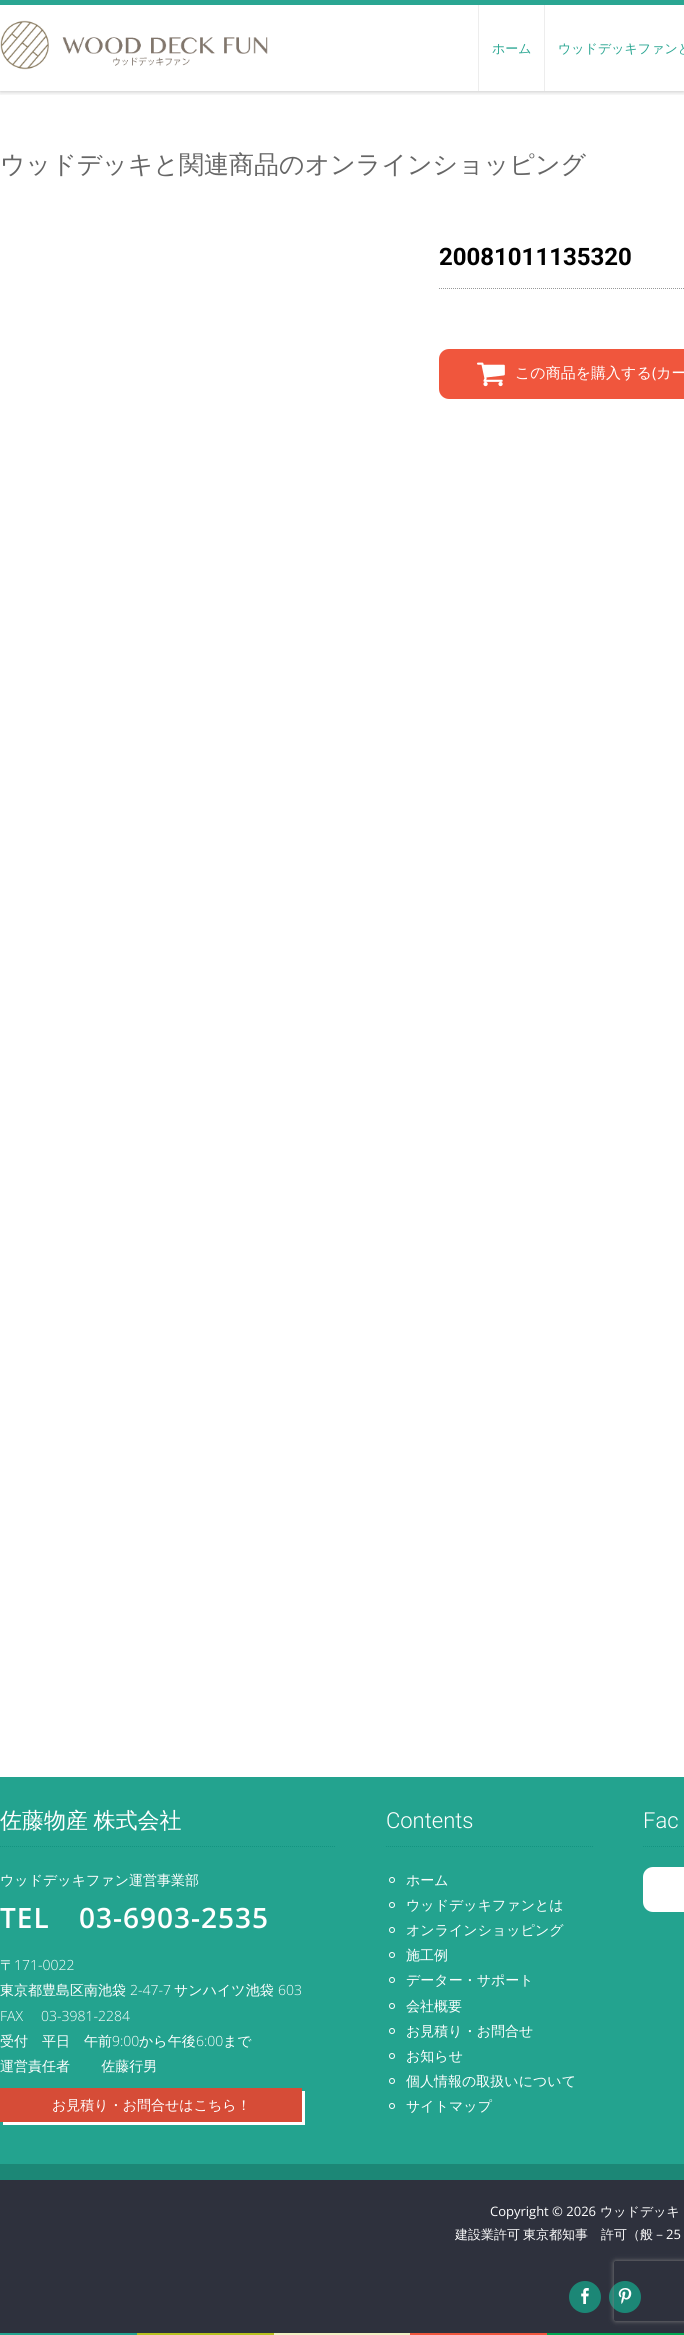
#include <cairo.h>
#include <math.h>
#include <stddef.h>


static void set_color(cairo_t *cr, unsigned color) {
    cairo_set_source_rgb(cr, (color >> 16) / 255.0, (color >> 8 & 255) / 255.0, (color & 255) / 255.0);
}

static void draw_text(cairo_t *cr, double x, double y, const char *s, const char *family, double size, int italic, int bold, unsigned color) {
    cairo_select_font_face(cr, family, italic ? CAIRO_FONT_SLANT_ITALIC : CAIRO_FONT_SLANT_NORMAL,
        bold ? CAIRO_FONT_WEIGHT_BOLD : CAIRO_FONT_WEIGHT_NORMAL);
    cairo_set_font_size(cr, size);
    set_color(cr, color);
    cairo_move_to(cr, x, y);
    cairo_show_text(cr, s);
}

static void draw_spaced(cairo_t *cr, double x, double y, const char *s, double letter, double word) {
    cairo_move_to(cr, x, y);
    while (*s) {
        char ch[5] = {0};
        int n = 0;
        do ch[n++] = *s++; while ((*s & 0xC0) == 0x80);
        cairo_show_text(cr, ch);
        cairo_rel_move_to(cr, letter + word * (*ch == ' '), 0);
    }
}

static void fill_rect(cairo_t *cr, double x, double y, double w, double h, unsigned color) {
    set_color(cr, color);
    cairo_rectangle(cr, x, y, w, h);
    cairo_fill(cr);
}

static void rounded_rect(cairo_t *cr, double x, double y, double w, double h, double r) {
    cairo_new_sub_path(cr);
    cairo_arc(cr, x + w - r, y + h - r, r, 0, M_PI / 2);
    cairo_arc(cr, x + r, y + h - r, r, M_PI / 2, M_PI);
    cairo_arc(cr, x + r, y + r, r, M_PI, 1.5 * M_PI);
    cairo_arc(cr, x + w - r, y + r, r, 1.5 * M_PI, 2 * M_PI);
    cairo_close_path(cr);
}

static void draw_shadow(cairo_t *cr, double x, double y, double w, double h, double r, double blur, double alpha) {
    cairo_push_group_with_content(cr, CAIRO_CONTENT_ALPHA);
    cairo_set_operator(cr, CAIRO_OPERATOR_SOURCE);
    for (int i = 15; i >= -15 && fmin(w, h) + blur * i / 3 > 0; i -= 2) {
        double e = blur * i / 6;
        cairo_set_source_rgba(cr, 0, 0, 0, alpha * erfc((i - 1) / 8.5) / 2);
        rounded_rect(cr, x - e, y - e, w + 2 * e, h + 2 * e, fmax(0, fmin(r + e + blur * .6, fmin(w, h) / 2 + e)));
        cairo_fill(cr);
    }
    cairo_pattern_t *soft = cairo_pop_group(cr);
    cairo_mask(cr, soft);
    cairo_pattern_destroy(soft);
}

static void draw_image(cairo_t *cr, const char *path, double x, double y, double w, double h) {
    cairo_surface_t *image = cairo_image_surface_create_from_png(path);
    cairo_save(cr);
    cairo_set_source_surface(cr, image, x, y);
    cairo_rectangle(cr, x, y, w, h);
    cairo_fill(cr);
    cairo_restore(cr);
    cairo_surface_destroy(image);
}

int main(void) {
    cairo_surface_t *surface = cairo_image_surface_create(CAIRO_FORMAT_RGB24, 684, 2335);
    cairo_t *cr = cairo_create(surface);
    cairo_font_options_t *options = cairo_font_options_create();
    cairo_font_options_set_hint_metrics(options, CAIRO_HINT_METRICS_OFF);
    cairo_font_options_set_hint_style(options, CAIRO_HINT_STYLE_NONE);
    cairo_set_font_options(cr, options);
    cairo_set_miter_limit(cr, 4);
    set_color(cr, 0xFFFFFF);
    cairo_paint(cr);
    cairo_save(cr);
    cairo_rectangle(cr, 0, 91, 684, 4);
    cairo_clip(cr);
    set_color(cr, 0x080808);
    draw_shadow(cr, 0, 0, 684, 91, 0, 3, 0.3);
    cairo_restore(cr);
    fill_rect(cr, 0, 0, 684, 5, 0x2AA692);
    draw_image(cr, "assets/img1.png", 0, 20, 268, 50);
    fill_rect(cr, 478, 5, 1, 86, 0xEDEDED);
    draw_text(cr, 492, 53, "ホーム", "WenQuanYi Zen Hei Medium", 13, 0, 0, 0x2AA692);
    fill_rect(cr, 544, 5, 1, 86, 0xEDEDED);
    draw_text(cr, 558, 53, "ウッドデッキファンと", "WenQuanYi Zen Hei Medium", 13, 0, 0, 0x2AA692);
    draw_text(cr, 0, 173, "ウッドデッキと関連商品のオンラインショッピング", "WenQuanYi Zen Hei Medium", 25, 0, 0, 0x666666);
    draw_text(cr, 439, 265, "20081011135320", "Roboto", 24, 0, 1, 0x000000);
    cairo_new_path(cr);
    cairo_move_to(cr, 439, 288.5);
    cairo_line_to(cr, 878, 288.5);
    set_color(cr, 0x979999);
    cairo_set_line_width(cr, 1);
    cairo_set_dash(cr, (double[]){1, 1}, 2, 0);
    cairo_stroke(cr);
    set_color(cr, 0xF0563D);
    rounded_rect(cr, 439, 349, 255, 50, 10);
    cairo_fill(cr);
    draw_image(cr, "assets/img2.png", 477, 362, 28, 25);
    draw_text(cr, 515, 378, "この商品を購入する カー", "WenQuanYi Zen Hei Medium", 15, 0, 0, 0xFFFFFF);
    draw_text(cr, 652, 378, "(", "Open Sans", 15, 0, 0, 0xFFFFFF);
    fill_rect(cr, 0, 1777, 684, 387, 0x23A38F);
    cairo_new_path(cr);
    cairo_move_to(cr, 0, 1846.5);
    cairo_line_to(cr, 336, 1846.5);
    set_color(cr, 0x139481);
    cairo_stroke(cr);
    cairo_select_font_face(cr, "WenQuanYi Zen Hei Medium", CAIRO_FONT_SLANT_NORMAL, CAIRO_FONT_WEIGHT_NORMAL);
    cairo_set_font_size(cr, 22);
    set_color(cr, 0xFFFFFF);
    draw_spaced(cr, 0, 1828, "佐藤物産 株式会社", 0, -1);
    draw_text(cr, 0, 1885, "ウッドデッキファン運営事業部", "WenQuanYi Zen Hei Medium", 14, 0, 0, 0xFFFFFF);
    cairo_select_font_face(cr, "Open Sans SemiBold", CAIRO_FONT_SLANT_NORMAL, CAIRO_FONT_WEIGHT_NORMAL);
    cairo_set_font_size(cr, 28);
    draw_spaced(cr, 0, 1928, "TEL", 1, 0);
    draw_spaced(cr, 79, 1928, "03-6903-2535", 1, 0);
    draw_text(cr, 0, 1970, "〒", "WenQuanYi Zen Hei Medium", 14, 0, 0, 0xFFFFFF);
    draw_text(cr, 14, 1970, "171-0022", "Open Sans Light", 14, 0, 0, 0xFFFFFF);
    draw_text(cr, 0, 1995, "東京都豊島区南池袋", "WenQuanYi Zen Hei Medium", 14, 0, 0, 0xFFFFFF);
    draw_text(cr, 130, 1995, "2-47-7", "Open Sans Light", 14, 0, 0, 0xFFFFFF);
    draw_text(cr, 174, 1995, "サンハイツ池袋", "WenQuanYi Zen Hei Medium", 14, 0, 0, 0xFFFFFF);
    draw_text(cr, 278, 1995, "603", "Open Sans Light", 14, 0, 0, 0xFFFFFF);
    draw_text(cr, 0, 2021, "FAX", "Open Sans Light", 14, 0, 0, 0xFFFFFF);
    draw_text(cr, 41, 2021, "03-3981-2284", "Open Sans Light", 14, 0, 0, 0xFFFFFF);
    draw_text(cr, 0, 2046, "受付　平日　午前", "WenQuanYi Zen Hei Medium", 14, 0, 0, 0xFFFFFF);
    draw_text(cr, 112, 2046, "9:00", "Open Sans Light", 14, 0, 0, 0xFFFFFF);
    draw_text(cr, 139, 2046, "から午後", "WenQuanYi Zen Hei Medium", 14, 0, 0, 0xFFFFFF);
    draw_text(cr, 196, 2046, "6:00", "Open Sans Light", 14, 0, 0, 0xFFFFFF);
    draw_text(cr, 223, 2046, "まで", "WenQuanYi Zen Hei Medium", 14, 0, 0, 0xFFFFFF);
    draw_spaced(cr, 0, 2071, "運営責任者　 　佐藤行男", 0, -1);
    cairo_new_path(cr);
    cairo_move_to(cr, 3, 2122);
    cairo_line_to(cr, 3, 2125);
    cairo_line_to(cr, 305, 2125);
    cairo_line_to(cr, 305, 2091);
    cairo_line_to(cr, 302, 2091);
    cairo_line_to(cr, 302, 2122);
    cairo_close_path(cr);
    cairo_fill(cr);
    fill_rect(cr, 0, 2088, 302, 34, 0xD64C37);
    draw_text(cr, 52, 2110, "お見積り・お問合せはこちら！", "WenQuanYi Zen Hei Medium", 14, 0, 0, 0xFFFFFF);
    cairo_new_path(cr);
    cairo_move_to(cr, 386, 1846.5);
    cairo_line_to(cr, 593, 1846.5);
    set_color(cr, 0x139481);
    cairo_stroke(cr);
    draw_text(cr, 386, 1828, "Contents", "Roboto Light", 22, 0, 0, 0xFFFFFF);
    cairo_new_path(cr);
    cairo_arc(cr, 392, 1880, 2.5, 0, 2 * M_PI);
    cairo_set_dash(cr, NULL, 0, 0);
    cairo_stroke(cr);
    draw_text(cr, 406, 1885, "ホーム", "WenQuanYi Zen Hei Medium", 14, 0, 0, 0xFFFFFF);
    cairo_new_path(cr);
    cairo_arc(cr, 392, 1905, 2.5, 0, 2 * M_PI);
    cairo_stroke(cr);
    draw_text(cr, 406, 1910, "ウッドデッキファンとは", "WenQuanYi Zen Hei Medium", 14, 0, 0, 0xFFFFFF);
    cairo_new_path(cr);
    cairo_arc(cr, 392, 1930, 2.5, 0, 2 * M_PI);
    cairo_stroke(cr);
    draw_text(cr, 406, 1935, "オンラインショッピング", "WenQuanYi Zen Hei Medium", 14, 0, 0, 0xFFFFFF);
    cairo_new_path(cr);
    cairo_arc(cr, 392, 1955, 2.5, 0, 2 * M_PI);
    cairo_stroke(cr);
    draw_text(cr, 406, 1960, "施工例", "WenQuanYi Zen Hei Medium", 14, 0, 0, 0xFFFFFF);
    cairo_new_path(cr);
    cairo_arc(cr, 392, 1980, 2.5, 0, 2 * M_PI);
    cairo_stroke(cr);
    draw_text(cr, 406, 1985, "データー・サポート", "WenQuanYi Zen Hei Medium", 14, 0, 0, 0xFFFFFF);
    cairo_new_path(cr);
    cairo_arc(cr, 392, 2006, 2.5, 0, 2 * M_PI);
    cairo_stroke(cr);
    draw_text(cr, 406, 2011, "会社概要", "WenQuanYi Zen Hei Medium", 14, 0, 0, 0xFFFFFF);
    cairo_new_path(cr);
    cairo_arc(cr, 392, 2031, 2.5, 0, 2 * M_PI);
    cairo_stroke(cr);
    draw_text(cr, 406, 2036, "お見積り・お問合せ", "WenQuanYi Zen Hei Medium", 14, 0, 0, 0xFFFFFF);
    cairo_new_path(cr);
    cairo_arc(cr, 392, 2056, 2.5, 0, 2 * M_PI);
    cairo_stroke(cr);
    draw_text(cr, 406, 2061, "お知らせ", "WenQuanYi Zen Hei Medium", 14, 0, 0, 0xFFFFFF);
    cairo_new_path(cr);
    cairo_arc(cr, 392, 2081, 2.5, 0, 2 * M_PI);
    cairo_stroke(cr);
    draw_text(cr, 406, 2086, "個人情報の取扱いについて", "WenQuanYi Zen Hei Medium", 14, 0, 0, 0xFFFFFF);
    cairo_new_path(cr);
    cairo_arc(cr, 392, 2106, 2.5, 0, 2 * M_PI);
    cairo_stroke(cr);
    draw_text(cr, 406, 2111, "サイトマップ", "WenQuanYi Zen Hei Medium", 14, 0, 0, 0xFFFFFF);
    cairo_new_path(cr);
    cairo_move_to(cr, 643, 1846.5);
    cairo_line_to(cr, 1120, 1846.5);
    set_color(cr, 0x139481);
    cairo_set_dash(cr, (double[]){1, 1}, 2, 0);
    cairo_stroke(cr);
    draw_text(cr, 643, 1828, "Fac", "Roboto Light", 22, 0, 0, 0xFFFFFF);
    rounded_rect(cr, 643, 1867, 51, 45, 10);
    cairo_fill(cr);
    fill_rect(cr, 0, 2164, 684, 16, 0x1C8776);
    fill_rect(cr, 0, 2180, 684, 153, 0x2E313D);
    draw_text(cr, 490, 2216, "Copyright © 2026", "Open Sans", 13, 0, 0, 0xFFFFFF);
    draw_text(cr, 600, 2216, "ウッドデッキ", "WenQuanYi Zen Hei Medium", 13, 0, 0, 0xFFFFFF);
    draw_text(cr, 455, 2239, "建設業許可", "WenQuanYi Zen Hei Medium", 13, 0, 0, 0xFFFFFF);
    draw_text(cr, 523, 2239, "東京都知事　許可（般－", "WenQuanYi Zen Hei Medium", 13, 0, 0, 0xFFFFFF);
    draw_text(cr, 666, 2239, "25", "Open Sans", 13, 0, 0, 0xFFFFFF);
    set_color(cr, 0x1C8776);
    cairo_new_path(cr);
    cairo_arc(cr, 585, 2297, 16, 0, 2 * M_PI);
    cairo_fill(cr);
    draw_image(cr, "assets/img3.png", 581, 2288, 8, 16);
    cairo_arc(cr, 625, 2297, 16, 0, 2 * M_PI);
    cairo_fill(cr);
    draw_image(cr, "assets/img4.png", 618, 2288, 14, 16);
    fill_rect(cr, 0, 2333, 137, 2, 0x23A38F);
    fill_rect(cr, 137, 2333, 137, 2, 0xB7C11E);
    fill_rect(cr, 274, 2333, 136, 2, 0xEFF1C2);
    fill_rect(cr, 410, 2333, 137, 2, 0xF0563D);
    fill_rect(cr, 547, 2333, 137, 2, 0x00A651);
    cairo_save(cr);
    cairo_set_fill_rule(cr, CAIRO_FILL_RULE_EVEN_ODD);
    cairo_new_path(cr);
    cairo_move_to(cr, 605, 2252);
    cairo_line_to(cr, 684, 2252);
    cairo_line_to(cr, 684, 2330);
    cairo_line_to(cr, 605, 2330);
    cairo_close_path(cr);
    cairo_move_to(cr, 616, 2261);
    cairo_line_to(cr, 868, 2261);
    cairo_curve_to(cr, 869, 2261, 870, 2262, 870, 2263);
    cairo_line_to(cr, 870, 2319);
    cairo_curve_to(cr, 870, 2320, 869, 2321, 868, 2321);
    cairo_line_to(cr, 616, 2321);
    cairo_curve_to(cr, 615, 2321, 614, 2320, 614, 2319);
    cairo_line_to(cr, 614, 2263);
    cairo_curve_to(cr, 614, 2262, 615, 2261, 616, 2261);
    cairo_close_path(cr);
    cairo_clip(cr);
    set_color(cr, 0x808080);
    draw_shadow(cr, 614, 2261, 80, 60, 2, 2.5, 1);
    cairo_restore(cr);
    cairo_surface_write_to_png(surface, "output.png");
    cairo_font_options_destroy(options);
    cairo_destroy(cr);
    cairo_surface_destroy(surface);
    return 0;
}
